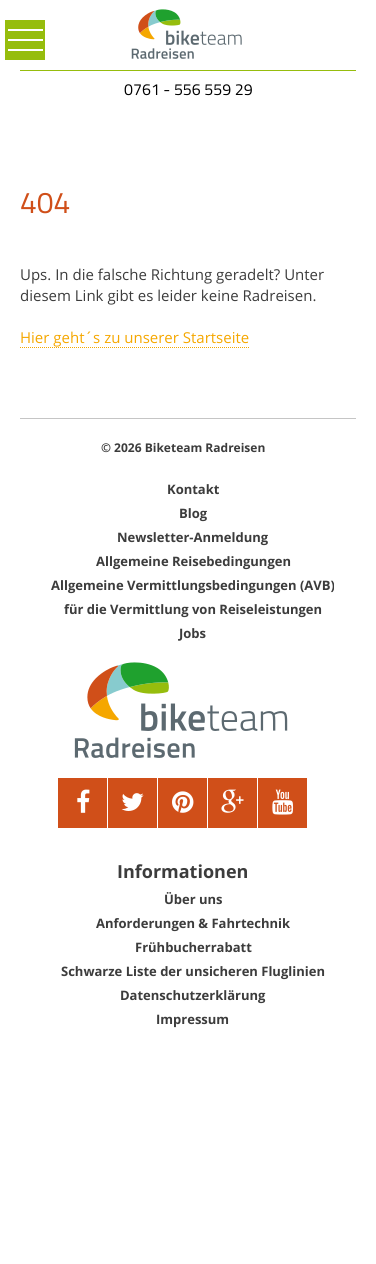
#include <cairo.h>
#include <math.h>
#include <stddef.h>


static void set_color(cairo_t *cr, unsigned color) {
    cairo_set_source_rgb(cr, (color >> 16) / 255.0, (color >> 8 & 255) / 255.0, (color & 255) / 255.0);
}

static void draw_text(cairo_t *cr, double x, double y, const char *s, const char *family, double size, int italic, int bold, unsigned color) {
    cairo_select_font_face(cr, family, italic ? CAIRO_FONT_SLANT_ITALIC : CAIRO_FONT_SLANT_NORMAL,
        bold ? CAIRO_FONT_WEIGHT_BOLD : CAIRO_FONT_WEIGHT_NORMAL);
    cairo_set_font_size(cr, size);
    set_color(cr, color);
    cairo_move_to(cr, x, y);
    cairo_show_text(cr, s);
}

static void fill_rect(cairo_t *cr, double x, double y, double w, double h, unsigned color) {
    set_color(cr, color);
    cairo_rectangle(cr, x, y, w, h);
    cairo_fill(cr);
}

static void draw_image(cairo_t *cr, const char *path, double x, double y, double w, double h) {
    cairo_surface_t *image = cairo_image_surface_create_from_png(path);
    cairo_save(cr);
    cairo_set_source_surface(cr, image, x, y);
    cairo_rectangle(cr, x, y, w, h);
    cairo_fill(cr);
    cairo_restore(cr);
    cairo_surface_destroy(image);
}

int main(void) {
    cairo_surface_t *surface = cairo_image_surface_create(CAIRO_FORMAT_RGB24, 376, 1264);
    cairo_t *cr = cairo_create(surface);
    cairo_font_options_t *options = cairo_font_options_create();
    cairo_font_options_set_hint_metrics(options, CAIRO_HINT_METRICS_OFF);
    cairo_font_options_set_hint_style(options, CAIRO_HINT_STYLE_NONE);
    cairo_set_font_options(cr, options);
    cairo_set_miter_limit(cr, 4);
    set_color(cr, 0xFFFFFF);
    cairo_paint(cr);
    fill_rect(cr, 5, 20, 40, 40, 0x96BD0D);
    fill_rect(cr, 8, 39, 35, 2, 0xFFFFFF);
    fill_rect(cr, 8, 29, 35, 2, 0xFFFFFF);
    fill_rect(cr, 8, 49, 35, 2, 0xFFFFFF);
    draw_image(cr, "assets/img1.png", 131, 9, 111, 50);
    fill_rect(cr, 20, 70, 336, 1, 0x96BD0D);
    draw_text(cr, 124, 95, "0761 - 556 559 29", "Titillium Web", 16, 0, 0, 0x000000);
    fill_rect(cr, 20, 418, 336, 1, 0xC5C5C5);
    draw_text(cr, 20, 213, "404", "Titillium Web", 30, 0, 0, 0xD04F19);
    draw_text(cr, 20, 280, "Ups. In die falsche Richtung geradelt? Unter", "Open Sans", 15, 0, 0, 0x3C3C3C);
    draw_text(cr, 20, 301, "diesem Link gibt es leider keine Radreisen.", "Open Sans", 15, 0, 0, 0x3C3C3C);
    draw_text(cr, 20, 343, "Hier geht´s zu unserer Startseite", "Open Sans", 15, 0, 0, 0xF5A700);
    cairo_new_path(cr);
    cairo_move_to(cr, 20, 347.5);
    cairo_line_to(cr, 249, 347.5);
    cairo_set_line_width(cr, 1);
    cairo_set_dash(cr, (double[]){1, 1}, 2, 0);
    cairo_stroke(cr);
    draw_text(cr, 101, 452, "© 2026 Biketeam Radreisen", "Open Sans", 12, 0, 1, 0x3C3C3C);
    draw_text(cr, 167, 494, "Kontakt", "Open Sans", 13, 0, 1, 0x3C3C3C);
    draw_text(cr, 179, 518, "Blog", "Open Sans", 13, 0, 1, 0x3C3C3C);
    draw_text(cr, 117, 542, "Newsletter-Anmeldung", "Open Sans", 13, 0, 1, 0x3C3C3C);
    draw_text(cr, 96, 566, "Allgemeine Reisebedingungen", "Open Sans", 13, 0, 1, 0x3C3C3C);
    draw_text(cr, 51, 590, "Allgemeine Vermittlungsbedingungen (AVB)", "Open Sans", 13, 0, 1, 0x3C3C3C);
    draw_text(cr, 64, 614, "für die Vermittlung von Reiseleistungen", "Open Sans", 13, 0, 1, 0x3C3C3C);
    draw_text(cr, 179, 638, "Jobs", "Open Sans", 13, 0, 1, 0x3C3C3C);
    draw_image(cr, "assets/img2.png", 74, 662, 214, 96);
    fill_rect(cr, 58, 778, 49, 50, 0xD04F19);
    draw_image(cr, "assets/img3.png", 77, 789, 13, 24);
    fill_rect(cr, 108, 778, 49, 50, 0xD04F19);
    draw_image(cr, "assets/img4.png", 121, 793, 23, 18);
    fill_rect(cr, 158, 778, 49, 50, 0xD04F19);
    draw_image(cr, "assets/img5.png", 172, 791, 22, 22);
    fill_rect(cr, 208, 778, 49, 50, 0xD04F19);
    draw_image(cr, "assets/img6.png", 221, 789, 23, 24);
    fill_rect(cr, 258, 778, 49, 50, 0xD04F19);
    draw_image(cr, "assets/img7.png", 272, 789, 22, 26);
    draw_text(cr, 117, 878, "Informationen", "Open Sans", 18, 0, 1, 0x3C3C3C);
    draw_text(cr, 164, 904, "Über uns", "Open Sans", 13, 0, 1, 0x3C3C3C);
    draw_text(cr, 96, 928, "Anforderungen & Fahrtechnik", "Open Sans", 13, 0, 1, 0x3C3C3C);
    draw_text(cr, 135, 952, "Frühbucherrabatt", "Open Sans", 13, 0, 1, 0x3C3C3C);
    draw_text(cr, 61, 976, "Schwarze Liste der unsicheren Fluglinien", "Open Sans", 13, 0, 1, 0x3C3C3C);
    draw_text(cr, 120, 1000, "Datenschutzerklärung", "Open Sans", 13, 0, 1, 0x3C3C3C);
    draw_text(cr, 156, 1024, "Impressum", "Open Sans", 13, 0, 1, 0x3C3C3C);
    cairo_surface_write_to_png(surface, "output.png");
    cairo_font_options_destroy(options);
    cairo_destroy(cr);
    cairo_surface_destroy(surface);
    return 0;
}
